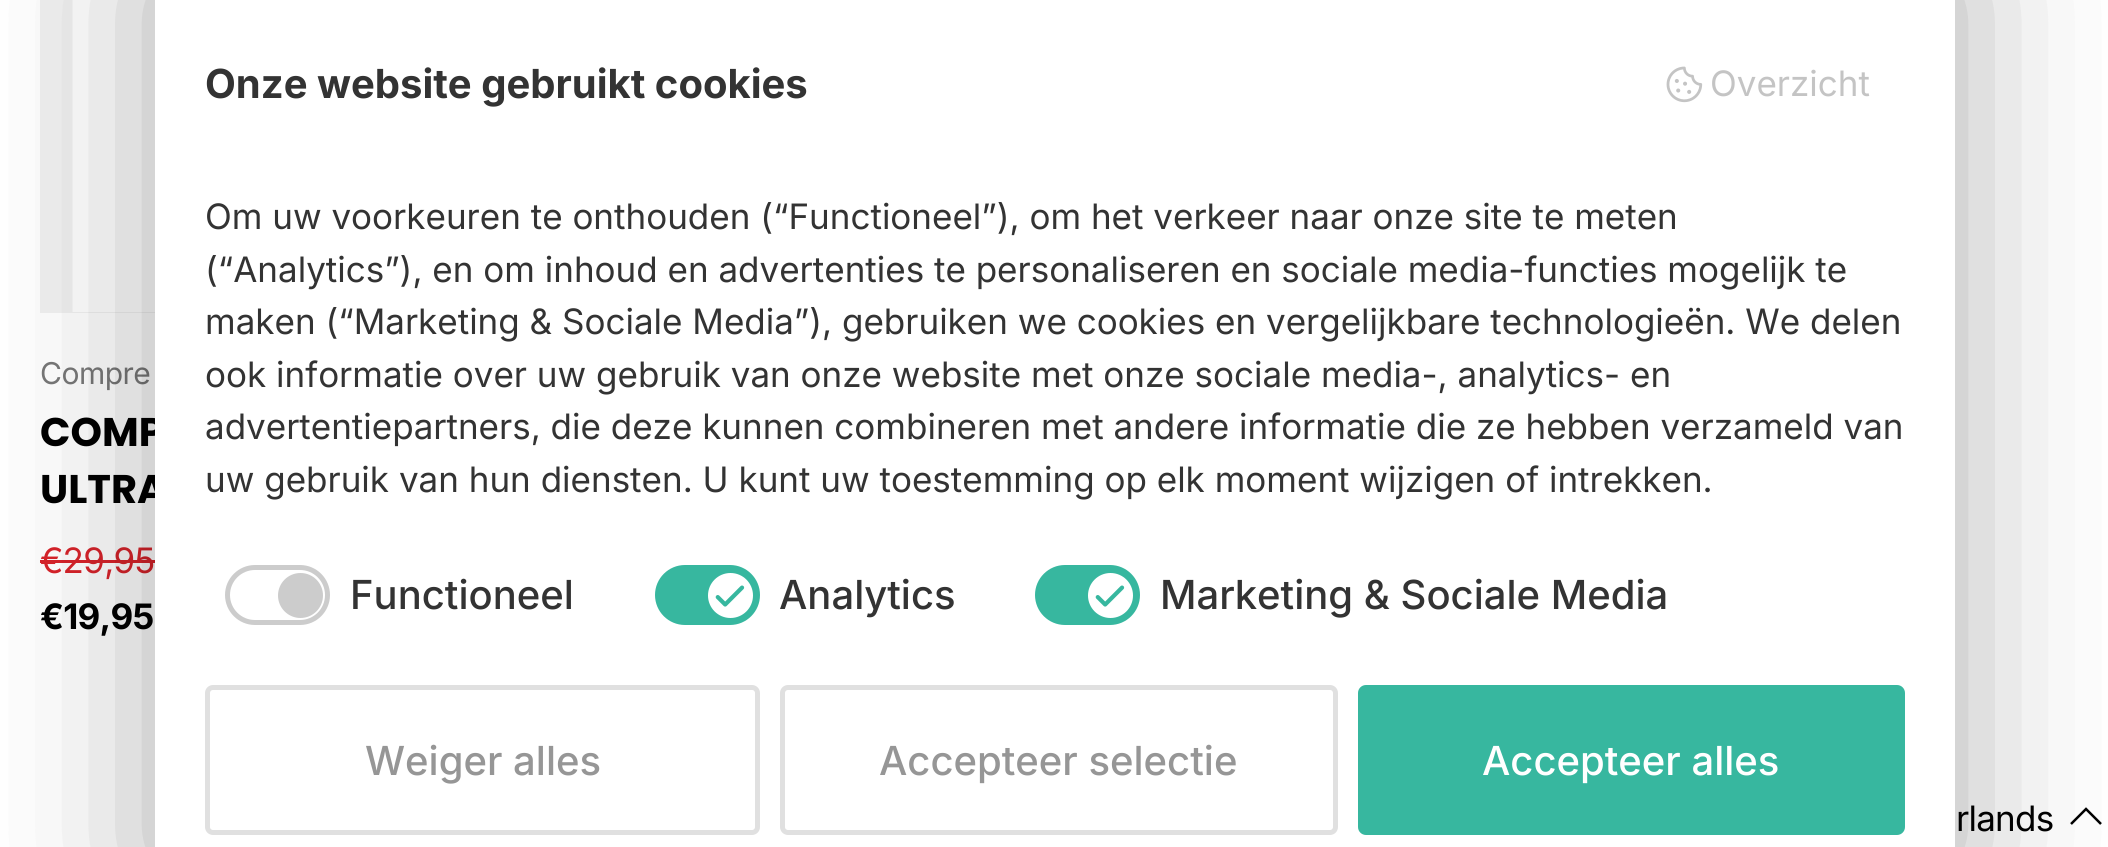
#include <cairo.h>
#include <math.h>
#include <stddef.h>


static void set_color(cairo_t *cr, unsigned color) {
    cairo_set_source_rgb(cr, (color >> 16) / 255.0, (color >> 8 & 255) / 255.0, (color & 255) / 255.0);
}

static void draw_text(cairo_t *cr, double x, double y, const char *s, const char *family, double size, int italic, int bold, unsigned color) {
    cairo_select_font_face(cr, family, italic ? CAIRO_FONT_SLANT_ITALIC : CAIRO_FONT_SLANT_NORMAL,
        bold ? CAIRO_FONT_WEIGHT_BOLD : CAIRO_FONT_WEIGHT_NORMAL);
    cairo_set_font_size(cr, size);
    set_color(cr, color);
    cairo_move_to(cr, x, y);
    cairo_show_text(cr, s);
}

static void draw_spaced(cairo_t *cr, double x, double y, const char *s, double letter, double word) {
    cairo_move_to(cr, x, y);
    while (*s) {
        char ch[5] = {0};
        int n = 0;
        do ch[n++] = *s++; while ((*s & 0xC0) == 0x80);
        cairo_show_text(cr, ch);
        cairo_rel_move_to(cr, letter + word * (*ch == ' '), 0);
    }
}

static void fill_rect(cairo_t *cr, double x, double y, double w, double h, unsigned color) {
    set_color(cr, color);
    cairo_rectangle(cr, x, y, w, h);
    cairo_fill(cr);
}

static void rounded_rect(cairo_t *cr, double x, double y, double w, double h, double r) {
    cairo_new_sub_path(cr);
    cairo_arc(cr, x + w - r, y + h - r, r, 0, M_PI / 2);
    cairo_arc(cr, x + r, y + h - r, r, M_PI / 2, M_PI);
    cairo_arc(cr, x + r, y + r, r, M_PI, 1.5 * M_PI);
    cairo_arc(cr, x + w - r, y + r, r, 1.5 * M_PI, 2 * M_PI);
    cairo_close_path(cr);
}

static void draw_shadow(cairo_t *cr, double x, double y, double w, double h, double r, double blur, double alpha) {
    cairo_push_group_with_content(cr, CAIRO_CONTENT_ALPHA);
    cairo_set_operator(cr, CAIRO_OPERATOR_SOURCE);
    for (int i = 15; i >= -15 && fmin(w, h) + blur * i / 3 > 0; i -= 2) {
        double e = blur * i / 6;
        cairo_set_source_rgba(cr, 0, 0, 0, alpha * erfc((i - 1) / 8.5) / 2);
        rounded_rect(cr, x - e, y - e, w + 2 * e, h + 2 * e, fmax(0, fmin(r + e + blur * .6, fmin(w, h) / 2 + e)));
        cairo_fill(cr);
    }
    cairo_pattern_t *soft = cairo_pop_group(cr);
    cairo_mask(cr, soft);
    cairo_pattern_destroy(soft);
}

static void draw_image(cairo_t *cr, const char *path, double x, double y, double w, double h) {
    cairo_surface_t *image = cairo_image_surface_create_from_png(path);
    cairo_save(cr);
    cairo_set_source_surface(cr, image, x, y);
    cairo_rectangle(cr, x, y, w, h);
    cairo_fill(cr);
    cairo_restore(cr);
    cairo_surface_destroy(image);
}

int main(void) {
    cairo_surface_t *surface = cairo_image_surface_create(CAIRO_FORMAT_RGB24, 2108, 847);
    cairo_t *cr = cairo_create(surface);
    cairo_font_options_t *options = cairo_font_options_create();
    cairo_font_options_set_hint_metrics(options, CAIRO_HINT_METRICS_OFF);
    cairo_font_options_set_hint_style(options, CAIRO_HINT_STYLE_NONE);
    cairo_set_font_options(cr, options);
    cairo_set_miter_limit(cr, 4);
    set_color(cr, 0xFFFFFF);
    cairo_paint(cr);
    fill_rect(cr, 40, 0, 115, 313, 0xF1F1F1);
    draw_image(cr, "assets/img1.png", 72, 0, 83, 312);
    cairo_select_font_face(cr, "Inter", CAIRO_FONT_SLANT_NORMAL, CAIRO_FONT_WEIGHT_NORMAL);
    cairo_set_font_size(cr, 30);
    set_color(cr, 0x787878);
    draw_spaced(cr, 40, 384, "Compre", -0.5, 0);
    draw_text(cr, 40, 446, "COMP", "Poppins", 40, 0, 1, 0x000000);
    draw_text(cr, 40, 503, "ULTRA", "Poppins", 40, 0, 1, 0x000000);
    cairo_select_font_face(cr, "Inter", CAIRO_FONT_SLANT_NORMAL, CAIRO_FONT_WEIGHT_NORMAL);
    cairo_set_font_size(cr, 35);
    set_color(cr, 0xD8232A);
    draw_spaced(cr, 40, 573, "€29,95", -0.75, 0);
    fill_rect(cr, 40, 560, 115, 3, 0xD8232A);
    cairo_select_font_face(cr, "Inter", CAIRO_FONT_SLANT_NORMAL, CAIRO_FONT_WEIGHT_BOLD);
    set_color(cr, 0x000000);
    draw_spaced(cr, 40, 629, "€19,95", -0.75, 0);
    cairo_new_path(cr);
    cairo_move_to(cr, 2101, 824);
    cairo_line_to(cr, 2086, 809);
    cairo_line_to(cr, 2071, 824);
    cairo_set_line_width(cr, 2.5);
    cairo_stroke(cr);
    set_color(cr, 0x000000);
    draw_shadow(cr, 155, -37, 1800, 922, 13, 80, 0.33);
    fill_rect(cr, 155, 0, 1800, 847, 0xFFFFFF);
    draw_text(cr, 205, 98, "Onze website gebruikt cookies", "Inter", 40, 0, 1, 0x333333);
    draw_image(cr, "assets/img2.png", 1666, 66, 37, 37);
    draw_text(cr, 1710, 96, "Overzicht", "Inter", 35, 0, 0, 0xC4C4C4);
    draw_text(cr, 205, 229, "Om uw voorkeuren te onthouden (“Functioneel”), om het verkeer naar onze site te meten", "Inter", 35, 0, 0, 0x333333);
    draw_text(cr, 205, 282, "(“Analytics”), en om inhoud en advertenties te personaliseren en sociale media-functies mogelijk te", "Inter", 35, 0, 0, 0x333333);
    draw_text(cr, 205, 334, "maken (“Marketing & Sociale Media”), gebruiken we cookies en vergelijkbare technologieën. We delen", "Inter", 35, 0, 0, 0x333333);
    draw_text(cr, 205, 387, "ook informatie over uw gebruik van onze website met onze sociale media-, analytics- en", "Inter", 35, 0, 0, 0x333333);
    draw_text(cr, 205, 439, "advertentiepartners, die deze kunnen combineren met andere informatie die ze hebben verzameld van", "Inter", 35, 0, 0, 0x333333);
    draw_text(cr, 205, 492, "uw gebruik van hun diensten. U kunt uw toestemming op elk moment wijzigen of intrekken.", "Inter", 35, 0, 0, 0x333333);
    rounded_rect(cr, 227.5, 567.5, 100, 55, 27.5);
    set_color(cr, 0xCCCCCC);
    cairo_set_line_width(cr, 5);
    cairo_stroke(cr);
    cairo_arc(cr, 300.5, 595.5, 22.5, 0, 2 * M_PI);
    cairo_fill(cr);
    draw_text(cr, 350, 609, "Functioneel", "Inter Medium", 40, 0, 0, 0x333333);
    set_color(cr, 0x37B79F);
    rounded_rect(cr, 657.5, 567.5, 100, 55, 27.5);
    cairo_fill_preserve(cr);
    cairo_stroke(cr);
    set_color(cr, 0xFFFFFF);
    cairo_arc(cr, 730.5, 595.5, 22.5, 0, 2 * M_PI);
    cairo_fill(cr);
    draw_image(cr, "assets/img3.png", 715, 585, 30, 22);
    draw_text(cr, 779, 609, "Analytics", "Inter Medium", 40, 0, 0, 0x333333);
    set_color(cr, 0x37B79F);
    rounded_rect(cr, 1037.5, 567.5, 100, 55, 27.5);
    cairo_fill_preserve(cr);
    cairo_stroke(cr);
    set_color(cr, 0xFFFFFF);
    cairo_arc(cr, 1110.5, 595.5, 22.5, 0, 2 * M_PI);
    cairo_fill(cr);
    draw_image(cr, "assets/img3.png", 1095, 585, 30, 22);
    draw_text(cr, 1160, 609, "Marketing & Sociale Media", "Inter Medium", 40, 0, 0, 0x333333);
    rounded_rect(cr, 207.5, 687.5, 550, 145, 5.5);
    set_color(cr, 0xE0E0E0);
    cairo_stroke(cr);
    draw_text(cr, 365, 775, "Weiger alles", "Inter Medium", 40, 0, 0, 0x969696);
    rounded_rect(cr, 782.5, 687.5, 553, 145, 5.5);
    set_color(cr, 0xE0E0E0);
    cairo_stroke(cr);
    draw_text(cr, 879, 775, "Accepteer selectie", "Inter Medium", 40, 0, 0, 0x969696);
    set_color(cr, 0x37B79F);
    rounded_rect(cr, 1358, 685, 547, 150, 8);
    cairo_fill(cr);
    draw_text(cr, 1482, 775, "Accepteer alles", "Inter Medium", 40, 0, 0, 0xFFFFFF);
    cairo_select_font_face(cr, "Inter", CAIRO_FONT_SLANT_NORMAL, CAIRO_FONT_WEIGHT_NORMAL);
    cairo_set_font_size(cr, 35);
    set_color(cr, 0x000000);
    draw_spaced(cr, 1956, 831, "rlands", -0.75, 0);
    cairo_surface_write_to_png(surface, "output.png");
    cairo_font_options_destroy(options);
    cairo_destroy(cr);
    cairo_surface_destroy(surface);
    return 0;
}
